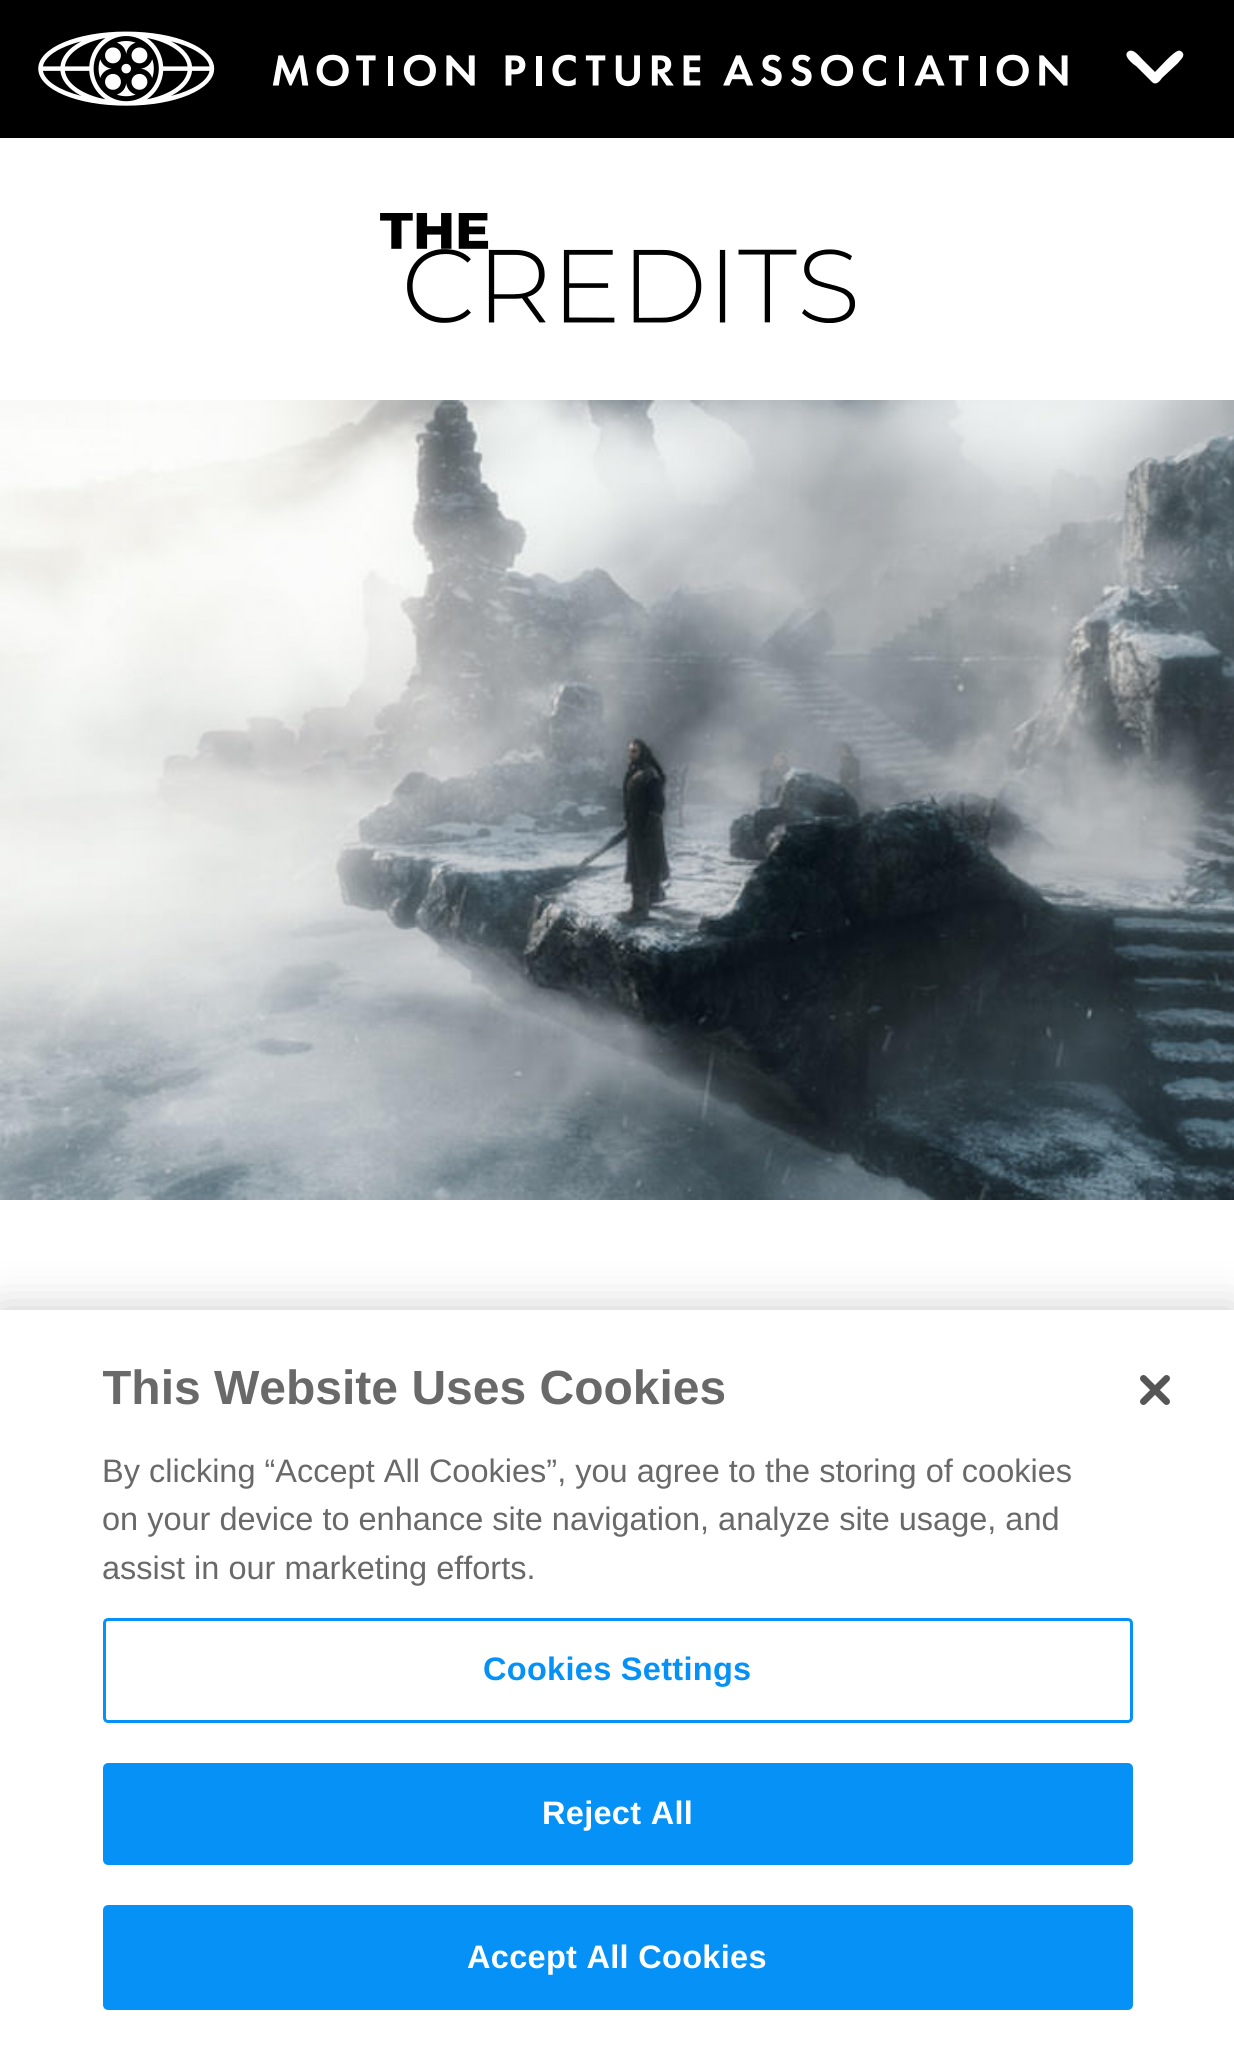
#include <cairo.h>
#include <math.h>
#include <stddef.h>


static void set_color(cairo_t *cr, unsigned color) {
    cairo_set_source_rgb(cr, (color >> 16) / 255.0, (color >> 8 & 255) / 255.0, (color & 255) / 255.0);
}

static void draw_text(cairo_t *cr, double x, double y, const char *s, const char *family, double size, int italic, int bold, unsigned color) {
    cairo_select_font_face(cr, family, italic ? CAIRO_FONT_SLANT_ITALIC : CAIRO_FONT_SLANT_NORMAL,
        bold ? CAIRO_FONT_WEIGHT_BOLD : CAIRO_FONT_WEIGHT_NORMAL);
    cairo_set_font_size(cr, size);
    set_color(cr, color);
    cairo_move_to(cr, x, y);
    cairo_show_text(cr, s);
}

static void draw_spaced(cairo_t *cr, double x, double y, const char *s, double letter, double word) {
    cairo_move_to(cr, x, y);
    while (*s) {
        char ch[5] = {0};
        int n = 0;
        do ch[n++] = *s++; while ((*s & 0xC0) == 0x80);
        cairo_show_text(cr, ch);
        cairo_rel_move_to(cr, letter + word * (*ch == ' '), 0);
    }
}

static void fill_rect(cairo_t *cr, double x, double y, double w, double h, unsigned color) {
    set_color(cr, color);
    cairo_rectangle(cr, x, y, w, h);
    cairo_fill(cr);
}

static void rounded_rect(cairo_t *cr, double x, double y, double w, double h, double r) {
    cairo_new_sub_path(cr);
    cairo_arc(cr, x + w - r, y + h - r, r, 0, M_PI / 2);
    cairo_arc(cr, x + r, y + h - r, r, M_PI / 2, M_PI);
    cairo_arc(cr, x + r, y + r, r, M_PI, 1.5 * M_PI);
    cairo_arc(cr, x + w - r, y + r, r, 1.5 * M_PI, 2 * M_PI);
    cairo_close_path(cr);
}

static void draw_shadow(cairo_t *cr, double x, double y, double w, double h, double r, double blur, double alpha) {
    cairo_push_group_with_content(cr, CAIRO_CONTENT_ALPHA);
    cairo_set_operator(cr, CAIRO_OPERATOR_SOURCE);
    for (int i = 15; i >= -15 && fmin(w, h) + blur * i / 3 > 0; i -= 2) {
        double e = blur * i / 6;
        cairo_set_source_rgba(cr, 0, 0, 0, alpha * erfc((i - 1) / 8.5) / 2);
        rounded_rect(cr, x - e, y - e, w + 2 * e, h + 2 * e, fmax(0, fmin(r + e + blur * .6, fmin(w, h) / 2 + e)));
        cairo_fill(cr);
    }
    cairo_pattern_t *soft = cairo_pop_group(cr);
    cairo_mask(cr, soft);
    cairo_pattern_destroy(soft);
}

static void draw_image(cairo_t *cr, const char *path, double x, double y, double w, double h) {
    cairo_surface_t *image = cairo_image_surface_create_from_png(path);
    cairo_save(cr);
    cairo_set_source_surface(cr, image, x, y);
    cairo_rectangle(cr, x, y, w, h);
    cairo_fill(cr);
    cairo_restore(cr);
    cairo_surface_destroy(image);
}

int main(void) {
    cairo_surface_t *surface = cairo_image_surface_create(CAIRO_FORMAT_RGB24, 1234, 2050);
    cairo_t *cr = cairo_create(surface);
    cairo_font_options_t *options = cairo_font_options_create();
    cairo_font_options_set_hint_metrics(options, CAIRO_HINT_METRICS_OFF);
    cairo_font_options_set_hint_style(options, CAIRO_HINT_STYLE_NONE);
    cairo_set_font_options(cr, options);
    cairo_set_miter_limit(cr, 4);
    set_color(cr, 0xFFFFFF);
    cairo_paint(cr);
    fill_rect(cr, 0, 0, 1234, 138, 0x000000);
    draw_image(cr, "assets/img1.png", 38, 31, 1030, 75);
    set_color(cr, 0xFFFFFF);
    cairo_new_path(cr);
    cairo_move_to(cr, 1152, 82);
    cairo_curve_to(cr, 1156, 86, 1160, 81, 1162, 78);
    cairo_line_to(cr, 1178, 63);
    cairo_curve_to(cr, 1180, 60, 1186, 56, 1182, 52);
    cairo_curve_to(cr, 1181, 51, 1179, 50, 1178, 51);
    cairo_curve_to(cr, 1174, 51, 1158, 69, 1155, 72);
    cairo_line_to(cr, 1142, 59);
    cairo_curve_to(cr, 1139, 56, 1134, 49, 1129, 51);
    cairo_curve_to(cr, 1121, 55, 1134, 65, 1136, 66);
    cairo_close_path(cr);
    cairo_fill(cr);
    draw_image(cr, "assets/img2.png", 380, 213, 475, 110);
    draw_image(cr, "assets/img3.png", 0, 400, 1234, 800);
    set_color(cr, 0x000000);
    draw_shadow(cr, 0, 1310, 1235, 740, 0, 22.5, 0.2);
    fill_rect(cr, 0, 1310, 1234, 740, 0xFFFFFF);
    cairo_save(cr);
    cairo_rectangle(cr, 103, 1360, 975, 233);
    cairo_clip(cr);
    draw_text(cr, 102, 1404, "This Website Uses Cookies", "Liberation Sans", 48, 0, 1, 0x696969);
    cairo_restore(cr);
    draw_text(cr, 102, 1482, "By clicking “Accept All Cookies”, you agree to the storing of cookies", "Liberation Sans", 32.5, 0, 0, 0x696969);
    draw_text(cr, 102, 1530, "on your device to enhance site navigation, analyze site usage, and", "Liberation Sans", 32.5, 0, 0, 0x696969);
    draw_text(cr, 102, 1579, "assist in our marketing efforts.", "Liberation Sans", 32.5, 0, 0, 0x696969);
    rounded_rect(cr, 104.5, 1619.5, 1027, 102, 3.5);
    set_color(cr, 0x0591F5);
    cairo_set_line_width(cr, 3);
    cairo_stroke(cr);
    cairo_select_font_face(cr, "Liberation Sans", CAIRO_FONT_SLANT_NORMAL, CAIRO_FONT_WEIGHT_BOLD);
    draw_spaced(cr, 483, 1680, "Cookies Settings", 0.3, 0);
    rounded_rect(cr, 104.5, 1764.5, 1027, 99, 3.5);
    cairo_fill_preserve(cr);
    cairo_stroke(cr);
    set_color(cr, 0xFFFFFF);
    draw_spaced(cr, 542, 1824, "Reject All", 0.3, 0);
    set_color(cr, 0x0591F5);
    rounded_rect(cr, 104.5, 1906.5, 1027, 102, 3.5);
    cairo_fill_preserve(cr);
    cairo_stroke(cr);
    set_color(cr, 0xFFFFFF);
    draw_spaced(cr, 467, 1968, "Accept All Cookies", 0.3, 0);
    draw_image(cr, "assets/img4.png", 1140, 1375, 30, 30);
    cairo_surface_write_to_png(surface, "output.png");
    cairo_font_options_destroy(options);
    cairo_destroy(cr);
    cairo_surface_destroy(surface);
    return 0;
}
